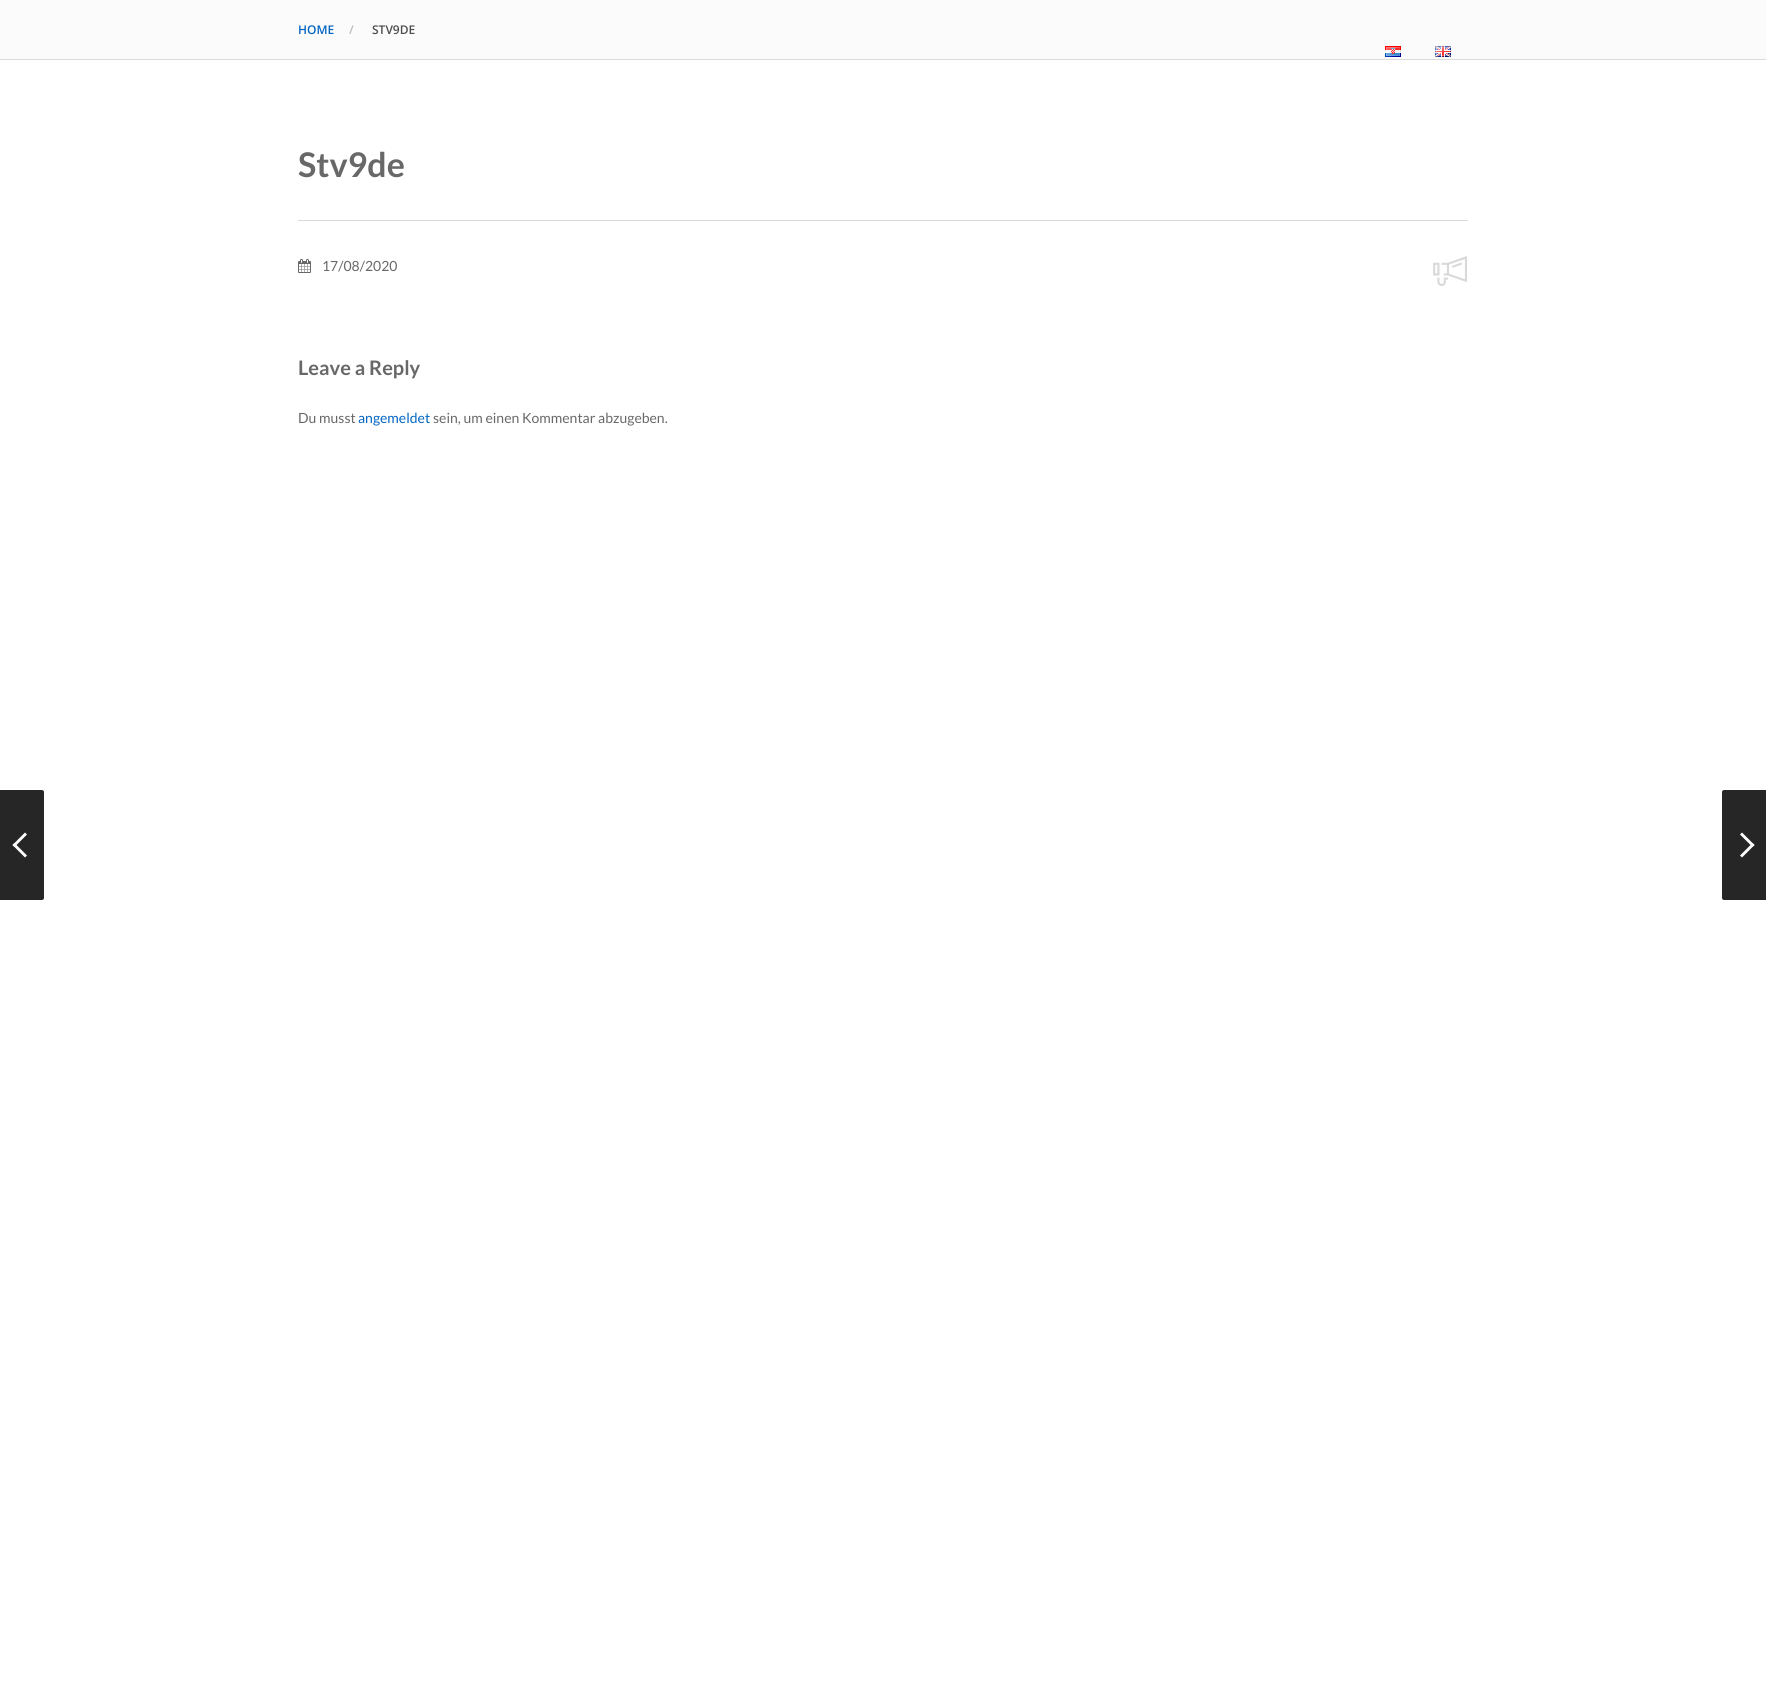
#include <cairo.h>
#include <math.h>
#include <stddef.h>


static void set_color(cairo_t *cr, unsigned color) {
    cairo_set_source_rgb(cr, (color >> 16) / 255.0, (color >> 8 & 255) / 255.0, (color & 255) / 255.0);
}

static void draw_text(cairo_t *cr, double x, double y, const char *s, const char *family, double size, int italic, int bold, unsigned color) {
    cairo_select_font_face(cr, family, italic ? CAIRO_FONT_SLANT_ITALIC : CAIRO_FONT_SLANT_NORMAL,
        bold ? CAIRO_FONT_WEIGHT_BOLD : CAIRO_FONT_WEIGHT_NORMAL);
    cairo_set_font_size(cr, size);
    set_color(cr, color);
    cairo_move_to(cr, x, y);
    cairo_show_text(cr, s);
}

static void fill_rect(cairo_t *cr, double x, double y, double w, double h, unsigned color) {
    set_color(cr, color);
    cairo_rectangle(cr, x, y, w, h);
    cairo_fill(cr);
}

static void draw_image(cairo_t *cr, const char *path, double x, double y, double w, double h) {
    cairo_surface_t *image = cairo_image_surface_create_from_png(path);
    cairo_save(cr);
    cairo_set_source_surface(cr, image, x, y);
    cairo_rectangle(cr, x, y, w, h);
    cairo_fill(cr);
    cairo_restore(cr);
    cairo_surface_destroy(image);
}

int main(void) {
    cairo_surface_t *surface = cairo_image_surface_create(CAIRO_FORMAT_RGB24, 1766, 1690);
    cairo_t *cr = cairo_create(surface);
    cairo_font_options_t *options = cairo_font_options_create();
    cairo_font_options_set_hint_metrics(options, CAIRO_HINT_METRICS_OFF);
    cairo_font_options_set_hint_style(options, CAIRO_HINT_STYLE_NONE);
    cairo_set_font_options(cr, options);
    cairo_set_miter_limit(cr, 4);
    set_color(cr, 0xFFFFFF);
    cairo_paint(cr);
    fill_rect(cr, 0, 0, 1766, 59, 0xFBFBFB);
    fill_rect(cr, 0, 59, 1766, 1, 0xDBDBDB);
    draw_text(cr, 298, 34, "HOME", "Open Sans SemiBold", 12, 0, 0, 0x0365C2);
    draw_text(cr, 349, 34, "/", "Open Sans SemiBold", 12, 0, 0, 0xB9B9B9);
    draw_text(cr, 372, 34, "STV9DE", "Open Sans SemiBold", 12, 0, 0, 0x4D4D4D);
    draw_text(cr, 298, 177, "Stv9de", "Lato", 34, 0, 1, 0x686868);
    fill_rect(cr, 298, 220, 1170, 1, 0xDBDBDB);
    draw_image(cr, "assets/img1.png", 298, 259, 13, 14);
    draw_text(cr, 322, 271, "17/08/2020", "Lato", 14, 0, 0, 0x686868);
    draw_image(cr, "assets/img2.png", 1433, 256, 34, 30);
    draw_text(cr, 298, 375, "Leave a Reply", "Lato", 20, 0, 1, 0x686868);
    draw_text(cr, 298, 423, "Du musst", "Lato", 14, 0, 0, 0x686868);
    draw_text(cr, 358, 423, "angemeldet", "Lato", 14, 0, 0, 0x0365C2);
    draw_text(cr, 433, 423, "sein, um einen Kommentar abzugeben.", "Lato", 14, 0, 0, 0x686868);
    set_color(cr, 0x262626);
    cairo_new_path(cr);
    cairo_move_to(cr, 0, 790);
    cairo_line_to(cr, 42, 790);
    cairo_curve_to(cr, 43, 790, 44, 791, 44, 792);
    cairo_line_to(cr, 44, 898);
    cairo_curve_to(cr, 44, 899, 43, 900, 42, 900);
    cairo_line_to(cr, 0, 900);
    cairo_close_path(cr);
    cairo_fill(cr);
    set_color(cr, 0xFFFFFF);
    cairo_new_path(cr);
    cairo_move_to(cr, 25, 857.5);
    cairo_line_to(cr, 12.5, 845);
    cairo_line_to(cr, 14.5, 843);
    cairo_line_to(cr, 27, 855.5);
    cairo_close_path(cr);
    cairo_fill(cr);
    cairo_new_path(cr);
    cairo_move_to(cr, 14.5, 847);
    cairo_line_to(cr, 12.5, 845);
    cairo_line_to(cr, 25, 832.5);
    cairo_line_to(cr, 27, 834.5);
    cairo_close_path(cr);
    cairo_fill(cr);
    set_color(cr, 0x262626);
    cairo_new_path(cr);
    cairo_move_to(cr, 1724, 790);
    cairo_line_to(cr, 1766, 790);
    cairo_line_to(cr, 1766, 900);
    cairo_line_to(cr, 1724, 900);
    cairo_curve_to(cr, 1723, 900, 1722, 899, 1722, 898);
    cairo_line_to(cr, 1722, 792);
    cairo_curve_to(cr, 1722, 791, 1723, 790, 1724, 790);
    cairo_close_path(cr);
    cairo_fill(cr);
    set_color(cr, 0xFFFFFF);
    cairo_new_path(cr);
    cairo_move_to(cr, 1742, 832.5);
    cairo_line_to(cr, 1754.5, 845);
    cairo_line_to(cr, 1752.5, 847);
    cairo_line_to(cr, 1740, 834.5);
    cairo_close_path(cr);
    cairo_fill(cr);
    cairo_new_path(cr);
    cairo_move_to(cr, 1752.5, 843);
    cairo_line_to(cr, 1754.5, 845);
    cairo_line_to(cr, 1742, 857.5);
    cairo_line_to(cr, 1740, 855.5);
    cairo_close_path(cr);
    cairo_fill(cr);
    draw_image(cr, "assets/img3.png", 1385, 46, 16, 11);
    draw_image(cr, "assets/img4.png", 1435, 46, 16, 11);
    cairo_surface_write_to_png(surface, "output.png");
    cairo_font_options_destroy(options);
    cairo_destroy(cr);
    cairo_surface_destroy(surface);
    return 0;
}
